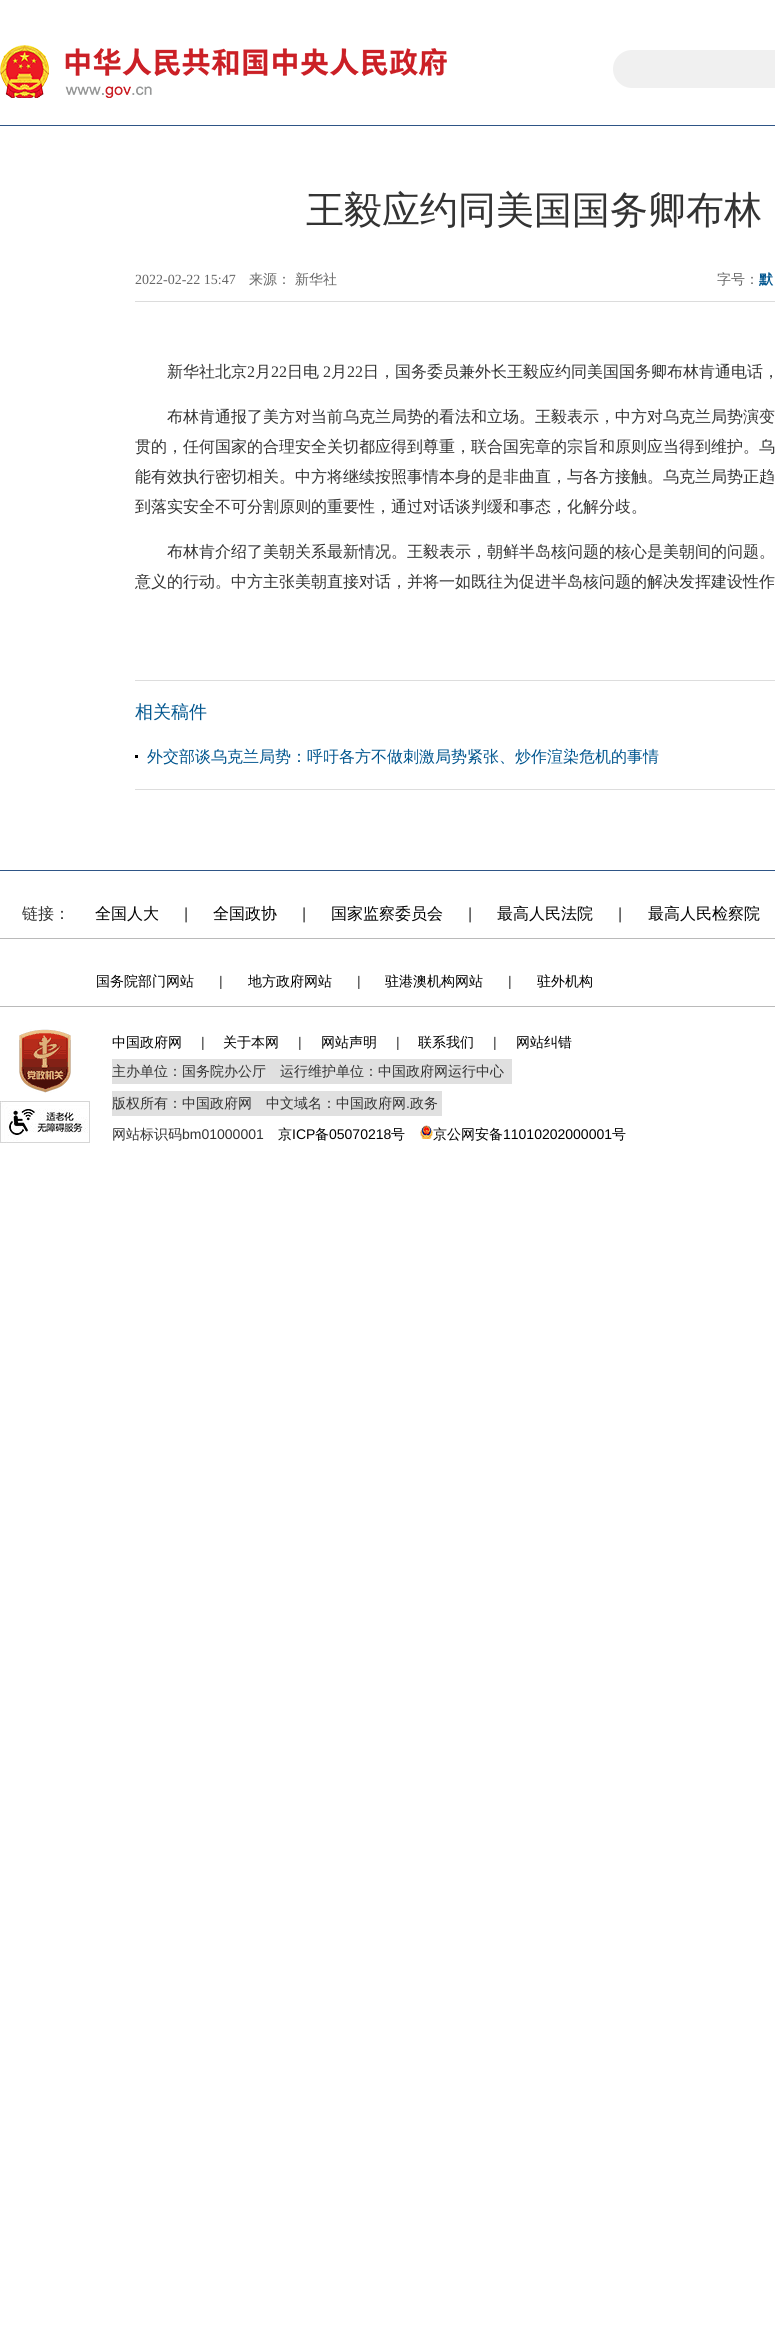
#include <cairo.h>
#include <math.h>
#include <stddef.h>


static void set_color(cairo_t *cr, unsigned color) {
    cairo_set_source_rgb(cr, (color >> 16) / 255.0, (color >> 8 & 255) / 255.0, (color & 255) / 255.0);
}

static void draw_text(cairo_t *cr, double x, double y, const char *s, const char *family, double size, int italic, int bold, unsigned color) {
    cairo_select_font_face(cr, family, italic ? CAIRO_FONT_SLANT_ITALIC : CAIRO_FONT_SLANT_NORMAL,
        bold ? CAIRO_FONT_WEIGHT_BOLD : CAIRO_FONT_WEIGHT_NORMAL);
    cairo_set_font_size(cr, size);
    set_color(cr, color);
    cairo_move_to(cr, x, y);
    cairo_show_text(cr, s);
}

static void fill_rect(cairo_t *cr, double x, double y, double w, double h, unsigned color) {
    set_color(cr, color);
    cairo_rectangle(cr, x, y, w, h);
    cairo_fill(cr);
}

static void rounded_rect(cairo_t *cr, double x, double y, double w, double h, double r) {
    cairo_new_sub_path(cr);
    cairo_arc(cr, x + w - r, y + h - r, r, 0, M_PI / 2);
    cairo_arc(cr, x + r, y + h - r, r, M_PI / 2, M_PI);
    cairo_arc(cr, x + r, y + r, r, M_PI, 1.5 * M_PI);
    cairo_arc(cr, x + w - r, y + r, r, 1.5 * M_PI, 2 * M_PI);
    cairo_close_path(cr);
}

static void draw_image(cairo_t *cr, const char *path, double x, double y, double w, double h) {
    cairo_surface_t *image = cairo_image_surface_create_from_png(path);
    cairo_save(cr);
    cairo_set_source_surface(cr, image, x, y);
    cairo_rectangle(cr, x, y, w, h);
    cairo_fill(cr);
    cairo_restore(cr);
    cairo_surface_destroy(image);
}

int main(void) {
    cairo_surface_t *surface = cairo_image_surface_create(CAIRO_FORMAT_RGB24, 775, 2343);
    cairo_t *cr = cairo_create(surface);
    cairo_font_options_t *options = cairo_font_options_create();
    cairo_font_options_set_hint_metrics(options, CAIRO_HINT_METRICS_OFF);
    cairo_font_options_set_hint_style(options, CAIRO_HINT_STYLE_NONE);
    cairo_set_font_options(cr, options);
    cairo_set_miter_limit(cr, 4);
    set_color(cr, 0xFFFFFF);
    cairo_paint(cr);
    fill_rect(cr, 0, 125, 775, 1, 0x2E5586);
    draw_image(cr, "assets/img1.png", 0, 45, 49, 53);
    draw_image(cr, "assets/img2.png", 65, 48, 382, 50);
    set_color(cr, 0xF0F0F0);
    rounded_rect(cr, 613, 50, 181, 38, 19);
    cairo_fill(cr);
    draw_text(cr, 306, 223, "王毅应约同美国国务卿布林", "WenQuanYi Zen Hei Medium", 38, 0, 0, 0x333333);
    fill_rect(cr, 135, 301, 640, 1, 0xDCDCDC);
    draw_text(cr, 135, 284, "2022-02-22 15:47", "Liberation Serif", 14, 0, 0, 0x666666);
    draw_text(cr, 249, 284, "来源：", "WenQuanYi Zen Hei Medium", 14, 0, 0, 0x666666);
    draw_text(cr, 295, 284, "新华社", "WenQuanYi Zen Hei Medium", 14, 0, 0, 0x666666);
    draw_text(cr, 717, 284, "字号：", "WenQuanYi Zen Hei Medium", 14, 0, 0, 0x666666);
    draw_text(cr, 759, 284, "默", "WenQuanYi Zen Hei", 14, 0, 1, 0x00558E);
    draw_text(cr, 167, 377, "新华社北京", "WenQuanYi Zen Hei Medium", 16, 0, 0, 0x333333);
    draw_text(cr, 247, 377, "2", "Liberation Serif", 16, 0, 0, 0x333333);
    draw_text(cr, 255, 377, "月", "WenQuanYi Zen Hei Medium", 16, 0, 0, 0x333333);
    draw_text(cr, 271, 377, "22", "Liberation Serif", 16, 0, 0, 0x333333);
    draw_text(cr, 287, 377, "日电", "WenQuanYi Zen Hei Medium", 16, 0, 0, 0x333333);
    draw_text(cr, 323, 377, "2", "Liberation Serif", 16, 0, 0, 0x333333);
    draw_text(cr, 331, 377, "月", "WenQuanYi Zen Hei Medium", 16, 0, 0, 0x333333);
    draw_text(cr, 347, 377, "22", "Liberation Serif", 16, 0, 0, 0x333333);
    draw_text(cr, 363, 377, "日，国务委员兼外长王毅应约同美国国务卿布林肯通电话，", "WenQuanYi Zen Hei Medium", 16, 0, 0, 0x333333);
    draw_text(cr, 167, 422, "布林肯通报了美方对当前乌克兰局势的看法和立场。王毅表示，中方对乌克兰局势演变", "WenQuanYi Zen Hei Medium", 16, 0, 0, 0x333333);
    draw_text(cr, 135, 452, "贯的，任何国家的合理安全关切都应得到尊重，联合国宪章的宗旨和原则应当得到维护。乌", "WenQuanYi Zen Hei Medium", 16, 0, 0, 0x333333);
    draw_text(cr, 135, 482, "能有效执行密切相关。中方将继续按照事情本身的是非曲直，与各方接触。乌克兰局势正趋", "WenQuanYi Zen Hei Medium", 16, 0, 0, 0x333333);
    draw_text(cr, 135, 512, "到落实安全不可分割原则的重要性，通过对话谈判缓和事态，化解分歧。", "WenQuanYi Zen Hei Medium", 16, 0, 0, 0x333333);
    draw_text(cr, 167, 557, "布林肯介绍了美朝关系最新情况。王毅表示，朝鲜半岛核问题的核心是美朝间的问题。", "WenQuanYi Zen Hei Medium", 16, 0, 0, 0x333333);
    draw_text(cr, 135, 587, "意义的行动。中方主张美朝直接对话，并将一如既往为促进半岛核问题的解决发挥建设性作", "WenQuanYi Zen Hei Medium", 16, 0, 0, 0x333333);
    fill_rect(cr, 135, 680, 640, 1, 0xDDDDDD);
    fill_rect(cr, 135, 789, 640, 1, 0xDDDDDD);
    draw_text(cr, 135, 718, "相关稿件", "WenQuanYi Zen Hei Medium", 18, 0, 0, 0x00558E);
    fill_rect(cr, 135, 755, 3, 3, 0x000000);
    draw_text(cr, 147, 762, "外交部谈乌克兰局势：呼吁各方不做刺激局势紧张、炒作渲染危机的事情", "WenQuanYi Zen Hei Medium", 16, 0, 0, 0x00558E);
    fill_rect(cr, 0, 870, 775, 1, 0x2E5586);
    fill_rect(cr, 0, 938, 775, 1, 0xBABABA);
    draw_text(cr, 22, 919, "链接：", "WenQuanYi Zen Hei Medium", 16, 0, 0, 0x333333);
    draw_text(cr, 95, 919, "全国人大", "WenQuanYi Zen Hei Medium", 16, 0, 0, 0x000000);
    draw_text(cr, 184, 919, "|", "Liberation Sans", 16, 0, 0, 0x333333);
    draw_text(cr, 213, 919, "全国政协", "WenQuanYi Zen Hei Medium", 16, 0, 0, 0x000000);
    draw_text(cr, 302, 919, "|", "Liberation Sans", 16, 0, 0, 0x333333);
    draw_text(cr, 331, 919, "国家监察委员会", "WenQuanYi Zen Hei Medium", 16, 0, 0, 0x000000);
    draw_text(cr, 468, 919, "|", "Liberation Sans", 16, 0, 0, 0x333333);
    draw_text(cr, 497, 919, "最高人民法院", "WenQuanYi Zen Hei Medium", 16, 0, 0, 0x000000);
    draw_text(cr, 618, 919, "|", "Liberation Sans", 16, 0, 0, 0x333333);
    draw_text(cr, 648, 919, "最高人民检察院", "WenQuanYi Zen Hei Medium", 16, 0, 0, 0x000000);
    fill_rect(cr, 0, 1006, 775, 1, 0xBABABA);
    draw_text(cr, 96, 986, "国务院部门网站", "WenQuanYi Zen Hei Medium", 14, 0, 0, 0x000000);
    draw_text(cr, 219, 986, "|", "Liberation Sans", 14, 0, 0, 0x333333);
    draw_text(cr, 248, 986, "地方政府网站", "WenQuanYi Zen Hei Medium", 14, 0, 0, 0x000000);
    draw_text(cr, 357, 986, "|", "Liberation Sans", 14, 0, 0, 0x333333);
    draw_text(cr, 385, 986, "驻港澳机构网站", "WenQuanYi Zen Hei Medium", 14, 0, 0, 0x000000);
    draw_text(cr, 508, 986, "|", "Liberation Sans", 14, 0, 0, 0x333333);
    draw_text(cr, 537, 986, "驻外机构", "WenQuanYi Zen Hei Medium", 14, 0, 0, 0x000000);
    draw_image(cr, "assets/img3.png", 19, 1029, 52, 64);
    draw_image(cr, "assets/img4.png", 0, 1101, 90, 42);
    draw_text(cr, 112, 1047, "中国政府网", "WenQuanYi Zen Hei Medium", 14, 0, 0, 0x000000);
    draw_text(cr, 201, 1047, "|", "Liberation Sans", 14, 0, 0, 0x333333);
    draw_text(cr, 223, 1047, "关于本网", "WenQuanYi Zen Hei Medium", 14, 0, 0, 0x000000);
    draw_text(cr, 298, 1047, "|", "Liberation Sans", 14, 0, 0, 0x333333);
    draw_text(cr, 321, 1047, "网站声明", "WenQuanYi Zen Hei Medium", 14, 0, 0, 0x000000);
    draw_text(cr, 396, 1047, "|", "Liberation Sans", 14, 0, 0, 0x333333);
    draw_text(cr, 418, 1047, "联系我们", "WenQuanYi Zen Hei Medium", 14, 0, 0, 0x000000);
    draw_text(cr, 493, 1047, "|", "Liberation Sans", 14, 0, 0, 0x333333);
    draw_text(cr, 516, 1047, "网站纠错", "WenQuanYi Zen Hei Medium", 14, 0, 0, 0x000000);
    fill_rect(cr, 112, 1059, 400, 25, 0xE0E0E0);
    draw_text(cr, 112, 1076, "主办单位：国务院办公厅　运行维护单位：中国政府网运行中心", "WenQuanYi Zen Hei Medium", 14, 0, 0, 0x333333);
    fill_rect(cr, 112, 1091, 330, 25, 0xE0E0E0);
    draw_text(cr, 112, 1108, "版权所有：中国政府网　中文域名：中国政府网", "WenQuanYi Zen Hei Medium", 14, 0, 0, 0x333333);
    draw_text(cr, 406, 1108, ".", "Liberation Sans", 14, 0, 0, 0x333333);
    draw_text(cr, 410, 1108, "政务", "WenQuanYi Zen Hei Medium", 14, 0, 0, 0x333333);
    draw_text(cr, 112, 1139, "网站标识码", "WenQuanYi Zen Hei Medium", 14, 0, 0, 0x333333);
    draw_text(cr, 182, 1139, "bm01000001", "Liberation Sans", 14, 0, 0, 0x333333);
    draw_text(cr, 278, 1139, "京", "WenQuanYi Zen Hei Medium", 14, 0, 0, 0x000000);
    draw_text(cr, 292, 1139, "ICP", "Liberation Sans", 14, 0, 0, 0x000000);
    draw_text(cr, 315, 1139, "备", "WenQuanYi Zen Hei Medium", 14, 0, 0, 0x000000);
    draw_text(cr, 329, 1139, "05070218", "Liberation Sans", 14, 0, 0, 0x000000);
    draw_text(cr, 391, 1139, "号", "WenQuanYi Zen Hei Medium", 14, 0, 0, 0x000000);
    draw_image(cr, "assets/img5.png", 420, 1125, 13, 14);
    draw_text(cr, 433, 1139, "京公网安备", "WenQuanYi Zen Hei Medium", 14, 0, 0, 0x000000);
    draw_text(cr, 503, 1139, "11010202000001", "Liberation Sans", 14, 0, 0, 0x000000);
    draw_text(cr, 612, 1139, "号", "WenQuanYi Zen Hei Medium", 14, 0, 0, 0x000000);
    cairo_surface_write_to_png(surface, "output.png");
    cairo_font_options_destroy(options);
    cairo_destroy(cr);
    cairo_surface_destroy(surface);
    return 0;
}
